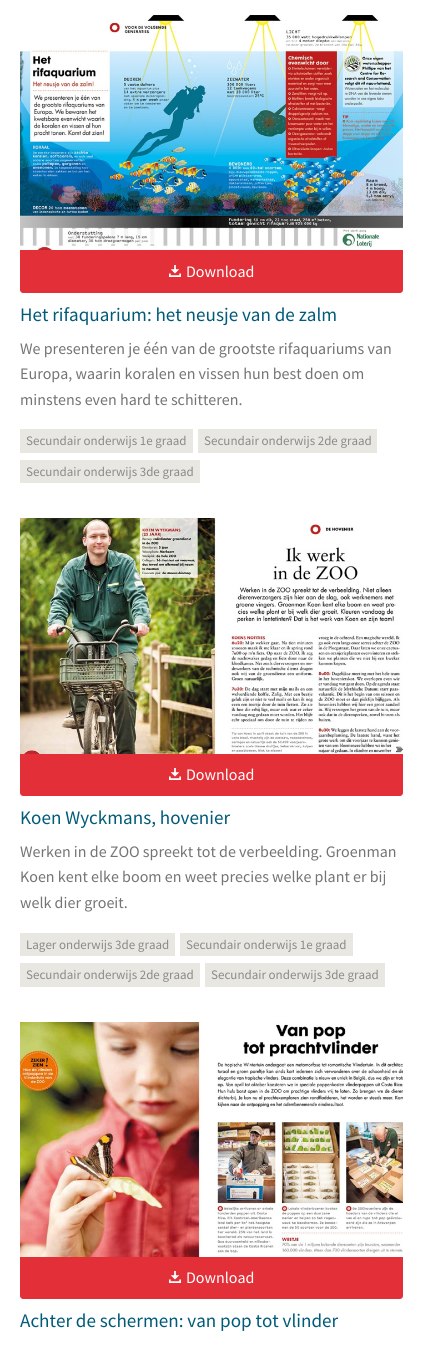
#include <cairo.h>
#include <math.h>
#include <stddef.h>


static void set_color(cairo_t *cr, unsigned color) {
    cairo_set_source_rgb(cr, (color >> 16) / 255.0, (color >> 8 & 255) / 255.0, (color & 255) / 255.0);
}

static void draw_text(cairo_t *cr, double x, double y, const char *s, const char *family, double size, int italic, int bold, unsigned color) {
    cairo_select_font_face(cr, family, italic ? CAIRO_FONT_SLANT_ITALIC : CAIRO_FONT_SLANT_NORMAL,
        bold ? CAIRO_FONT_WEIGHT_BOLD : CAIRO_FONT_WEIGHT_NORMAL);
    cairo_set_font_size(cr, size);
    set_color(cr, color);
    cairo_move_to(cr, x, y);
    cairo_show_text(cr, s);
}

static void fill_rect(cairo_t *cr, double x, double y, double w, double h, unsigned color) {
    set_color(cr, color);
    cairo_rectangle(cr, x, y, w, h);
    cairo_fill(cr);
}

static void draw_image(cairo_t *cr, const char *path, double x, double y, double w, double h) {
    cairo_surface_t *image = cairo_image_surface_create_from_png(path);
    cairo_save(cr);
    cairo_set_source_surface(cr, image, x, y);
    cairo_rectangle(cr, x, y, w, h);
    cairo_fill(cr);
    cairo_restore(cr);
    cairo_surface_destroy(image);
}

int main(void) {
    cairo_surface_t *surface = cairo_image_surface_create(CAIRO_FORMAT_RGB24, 423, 1349);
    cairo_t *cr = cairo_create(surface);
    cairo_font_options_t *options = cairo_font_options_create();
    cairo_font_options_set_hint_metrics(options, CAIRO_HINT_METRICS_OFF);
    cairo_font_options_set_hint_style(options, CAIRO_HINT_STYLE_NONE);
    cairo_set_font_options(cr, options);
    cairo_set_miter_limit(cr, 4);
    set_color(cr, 0xFFFFFF);
    cairo_paint(cr);
    draw_image(cr, "assets/img1.png", 20, 15, 383, 235);
    set_color(cr, 0xE32F38);
    cairo_new_path(cr);
    cairo_move_to(cr, 20, 250);
    cairo_line_to(cr, 403, 250);
    cairo_line_to(cr, 403, 290);
    cairo_curve_to(cr, 403, 291.5, 401.5, 293, 400, 293);
    cairo_line_to(cr, 23, 293);
    cairo_curve_to(cr, 21.5, 293, 20, 291.5, 20, 290);
    cairo_close_path(cr);
    cairo_fill(cr);
    draw_image(cr, "assets/img2.png", 169, 265, 12, 12);
    draw_text(cr, 186, 277, "Download", "Source Sans Pro", 16, 0, 0, 0xFFFFFF);
    draw_text(cr, 20, 321, "Het rifaquarium: het neusje van de zalm", "Source Sans Pro", 19.1, 0, 0, 0x005A78);
    draw_text(cr, 20, 354, "We presenteren je één van de grootste rifaquariums van", "Source Sans Pro", 16, 0, 0, 0x747474);
    draw_text(cr, 20, 379, "Europa, waarin koralen en vissen hun best doen om", "Source Sans Pro", 16, 0, 0, 0x747474);
    draw_text(cr, 20, 405, "minstens even hard te schitteren.", "Source Sans Pro", 16, 0, 0, 0x747474);
    fill_rect(cr, 20, 429, 173, 24, 0xE8E7E2);
    draw_text(cr, 26, 445, "Secundair onderwijs 1e graad", "Source Sans Pro", 13, 0, 0, 0x8A8A8A);
    fill_rect(cr, 198, 429, 179, 24, 0xE8E7E2);
    draw_text(cr, 204, 445, "Secundair onderwijs 2de graad", "Source Sans Pro", 13, 0, 0, 0x8A8A8A);
    fill_rect(cr, 20, 460, 180, 23, 0xE8E7E2);
    draw_text(cr, 26, 476, "Secundair onderwijs 3de graad", "Source Sans Pro", 13, 0, 0, 0x8A8A8A);
    draw_image(cr, "assets/img3.png", 20, 518, 383, 236);
    set_color(cr, 0xE32F38);
    cairo_new_path(cr);
    cairo_move_to(cr, 20, 754);
    cairo_line_to(cr, 403, 754);
    cairo_line_to(cr, 403, 793);
    cairo_curve_to(cr, 403, 794.5, 401.5, 796, 400, 796);
    cairo_line_to(cr, 23, 796);
    cairo_curve_to(cr, 21.5, 796, 20, 794.5, 20, 793);
    cairo_close_path(cr);
    cairo_fill(cr);
    draw_image(cr, "assets/img2.png", 169, 768, 12, 12);
    draw_text(cr, 186, 780, "Download", "Source Sans Pro", 16, 0, 0, 0xFFFFFF);
    draw_text(cr, 20, 824, "Koen Wyckmans, hovenier", "Source Sans Pro", 19.1, 0, 0, 0x005A78);
    draw_text(cr, 20, 857, "Werken in de ZOO spreekt tot de verbeelding. Groenman", "Source Sans Pro", 16, 0, 0, 0x747474);
    draw_text(cr, 20, 882, "Koen kent elke boom en weet precies welke plant er bij", "Source Sans Pro", 16, 0, 0, 0x747474);
    draw_text(cr, 20, 908, "welk dier groeit.", "Source Sans Pro", 16, 0, 0, 0x747474);
    fill_rect(cr, 20, 933, 155, 23, 0xE8E7E2);
    draw_text(cr, 26, 949, "Lager onderwijs 3de graad", "Source Sans Pro", 13, 0, 0, 0x8A8A8A);
    fill_rect(cr, 180, 933, 173, 23, 0xE8E7E2);
    draw_text(cr, 186, 949, "Secundair onderwijs 1e graad", "Source Sans Pro", 13, 0, 0, 0x8A8A8A);
    fill_rect(cr, 20, 963, 180, 24, 0xE8E7E2);
    draw_text(cr, 26, 979, "Secundair onderwijs 2de graad", "Source Sans Pro", 13, 0, 0, 0x8A8A8A);
    fill_rect(cr, 205, 963, 180, 24, 0xE8E7E2);
    draw_text(cr, 211, 979, "Secundair onderwijs 3de graad", "Source Sans Pro", 13, 0, 0, 0x8A8A8A);
    draw_image(cr, "assets/img4.png", 20, 1022, 383, 235);
    set_color(cr, 0xE32F38);
    cairo_new_path(cr);
    cairo_move_to(cr, 20, 1257);
    cairo_line_to(cr, 403, 1257);
    cairo_line_to(cr, 403, 1296);
    cairo_curve_to(cr, 403, 1297.5, 401.5, 1299, 400, 1299);
    cairo_line_to(cr, 23, 1299);
    cairo_curve_to(cr, 21.5, 1299, 20, 1297.5, 20, 1296);
    cairo_close_path(cr);
    cairo_fill(cr);
    draw_image(cr, "assets/img2.png", 169, 1271, 12, 12);
    draw_text(cr, 186, 1283, "Download", "Source Sans Pro", 16, 0, 0, 0xFFFFFF);
    draw_text(cr, 20, 1327, "Achter de schermen: van pop tot vlinder", "Source Sans Pro", 19.1, 0, 0, 0x005A78);
    cairo_surface_write_to_png(surface, "output.png");
    cairo_font_options_destroy(options);
    cairo_destroy(cr);
    cairo_surface_destroy(surface);
    return 0;
}
